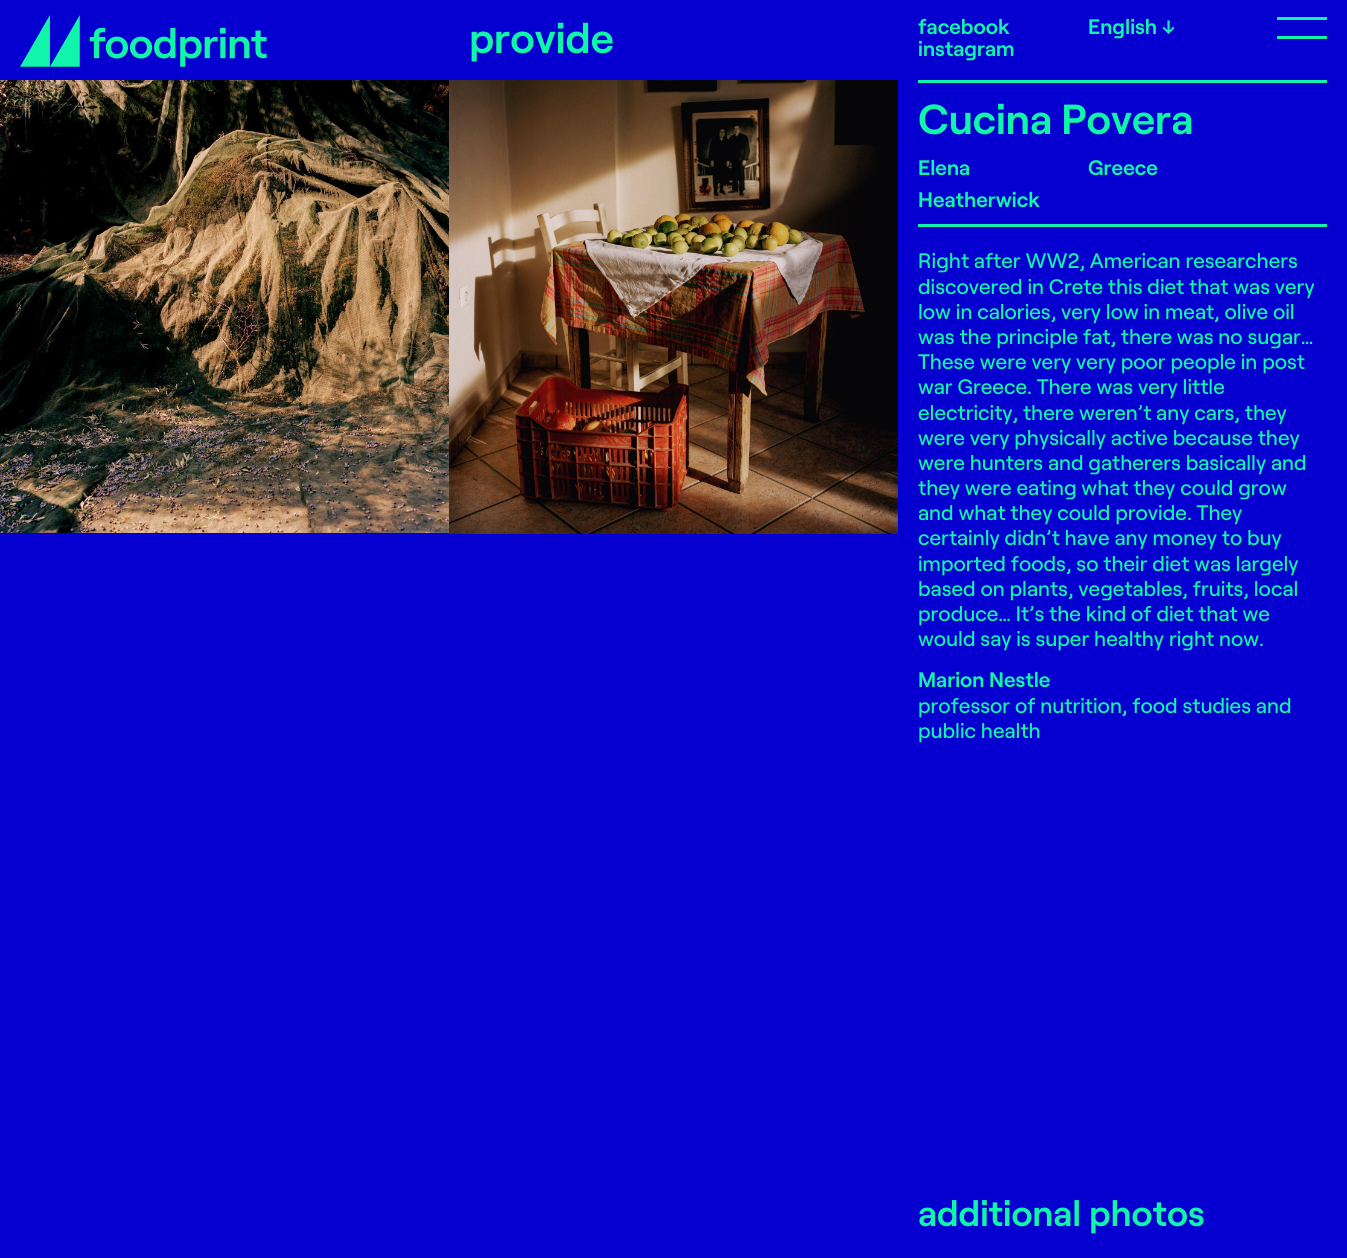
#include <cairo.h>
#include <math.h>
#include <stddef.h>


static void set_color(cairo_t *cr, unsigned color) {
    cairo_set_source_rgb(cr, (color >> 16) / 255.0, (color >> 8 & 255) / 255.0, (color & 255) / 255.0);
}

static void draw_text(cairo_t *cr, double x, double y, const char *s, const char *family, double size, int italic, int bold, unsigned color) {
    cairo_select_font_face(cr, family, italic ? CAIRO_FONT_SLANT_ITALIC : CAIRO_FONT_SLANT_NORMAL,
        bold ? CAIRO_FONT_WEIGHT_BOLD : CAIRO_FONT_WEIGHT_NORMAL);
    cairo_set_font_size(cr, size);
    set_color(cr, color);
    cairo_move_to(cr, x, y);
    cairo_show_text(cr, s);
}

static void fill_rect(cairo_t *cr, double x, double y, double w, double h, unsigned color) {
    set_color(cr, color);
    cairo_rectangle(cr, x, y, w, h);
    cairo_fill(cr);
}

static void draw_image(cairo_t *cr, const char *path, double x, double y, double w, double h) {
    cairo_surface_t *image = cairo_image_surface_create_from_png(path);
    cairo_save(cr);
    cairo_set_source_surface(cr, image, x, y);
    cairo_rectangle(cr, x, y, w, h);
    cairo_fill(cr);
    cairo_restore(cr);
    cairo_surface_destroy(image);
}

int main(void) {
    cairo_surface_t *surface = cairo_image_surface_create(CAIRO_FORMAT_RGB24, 1347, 1258);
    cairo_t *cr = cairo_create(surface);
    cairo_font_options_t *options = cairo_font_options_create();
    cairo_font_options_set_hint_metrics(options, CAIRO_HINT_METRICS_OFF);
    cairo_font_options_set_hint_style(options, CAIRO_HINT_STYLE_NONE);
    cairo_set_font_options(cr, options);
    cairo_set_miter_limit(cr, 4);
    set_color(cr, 0x0500D0);
    cairo_paint(cr);
    draw_image(cr, "assets/img1.png", 20, 15, 247, 52);
    draw_text(cr, 469, 53, "provide", "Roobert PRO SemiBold", 42, 0, 0, 0x11F5AB);
    draw_text(cr, 918, 34, "facebook", "Roobert PRO SemiBold", 21, 0, 0, 0x11F5AB);
    draw_text(cr, 918, 56, "instagram", "Roobert PRO SemiBold", 21, 0, 0, 0x11F5AB);
    draw_text(cr, 1088, 34, "English ↓", "Roobert PRO SemiBold", 21, 0, 0, 0x11F5AB);
    fill_rect(cr, 1277, 17, 50, 3, 0x11F5AB);
    fill_rect(cr, 1277, 36, 50, 3, 0x11F5AB);
    draw_image(cr, "assets/img2.png", 0, 80, 449, 453);
    draw_image(cr, "assets/img3.png", 449, 80, 449, 454);
    fill_rect(cr, 918, 80, 409, 3, 0x11F5AB);
    draw_text(cr, 918, 134, "Cucina Povera", "Roobert PRO SemiBold", 42, 0, 0, 0x11F5AB);
    fill_rect(cr, 918, 224, 409, 3, 0x11F5AB);
    draw_text(cr, 918, 175, "Elena", "Roobert PRO SemiBold", 21, 0, 0, 0x11F5AB);
    draw_text(cr, 918, 207, "Heatherwick", "Roobert PRO SemiBold", 21, 0, 0, 0x11F5AB);
    draw_text(cr, 1088, 175, "Greece", "Roobert PRO SemiBold", 21, 0, 0, 0x11F5AB);
    draw_text(cr, 918, 268, "Right after WW2, American researchers", "Roobert PRO Medium", 21, 0, 0, 0x11F5AB);
    draw_text(cr, 918, 294, "discovered in Crete this diet that was very", "Roobert PRO Medium", 21, 0, 0, 0x11F5AB);
    draw_text(cr, 918, 319, "low in calories, very low in meat, olive oil", "Roobert PRO Medium", 21, 0, 0, 0x11F5AB);
    draw_text(cr, 918, 344, "was the principle fat, there was no sugar…", "Roobert PRO Medium", 21, 0, 0, 0x11F5AB);
    draw_text(cr, 918, 369, "These were very very poor people in post", "Roobert PRO Medium", 21, 0, 0, 0x11F5AB);
    draw_text(cr, 918, 394, "war Greece. There was very little", "Roobert PRO Medium", 21, 0, 0, 0x11F5AB);
    draw_text(cr, 918, 420, "electricity, there weren’t any cars, they", "Roobert PRO Medium", 21, 0, 0, 0x11F5AB);
    draw_text(cr, 918, 445, "were very physically active because they", "Roobert PRO Medium", 21, 0, 0, 0x11F5AB);
    draw_text(cr, 918, 470, "were hunters and gatherers basically and", "Roobert PRO Medium", 21, 0, 0, 0x11F5AB);
    draw_text(cr, 918, 495, "they were eating what they could grow", "Roobert PRO Medium", 21, 0, 0, 0x11F5AB);
    draw_text(cr, 918, 520, "and what they could provide. They", "Roobert PRO Medium", 21, 0, 0, 0x11F5AB);
    draw_text(cr, 918, 545, "certainly didn’t have any money to buy", "Roobert PRO Medium", 21, 0, 0, 0x11F5AB);
    draw_text(cr, 918, 571, "imported foods, so their diet was largely", "Roobert PRO Medium", 21, 0, 0, 0x11F5AB);
    draw_text(cr, 918, 596, "based on plants, vegetables, fruits, local", "Roobert PRO Medium", 21, 0, 0, 0x11F5AB);
    draw_text(cr, 918, 621, "produce… It’s the kind of diet that we", "Roobert PRO Medium", 21, 0, 0, 0x11F5AB);
    draw_text(cr, 918, 646, "would say is super healthy right now.", "Roobert PRO Medium", 21, 0, 0, 0x11F5AB);
    draw_text(cr, 918, 687, "Marion Nestle", "Roobert PRO SemiBold", 21, 0, 0, 0x11F5AB);
    draw_text(cr, 918, 713, "professor of nutrition, food studies and", "Roobert PRO Medium", 21, 0, 0, 0x11F5AB);
    draw_text(cr, 918, 738, "public health", "Roobert PRO Medium", 21, 0, 0, 0x11F5AB);
    draw_text(cr, 918, 1226, "additional photos", "Roobert PRO SemiBold", 36, 0, 0, 0x11F5AB);
    cairo_surface_write_to_png(surface, "output.png");
    cairo_font_options_destroy(options);
    cairo_destroy(cr);
    cairo_surface_destroy(surface);
    return 0;
}
